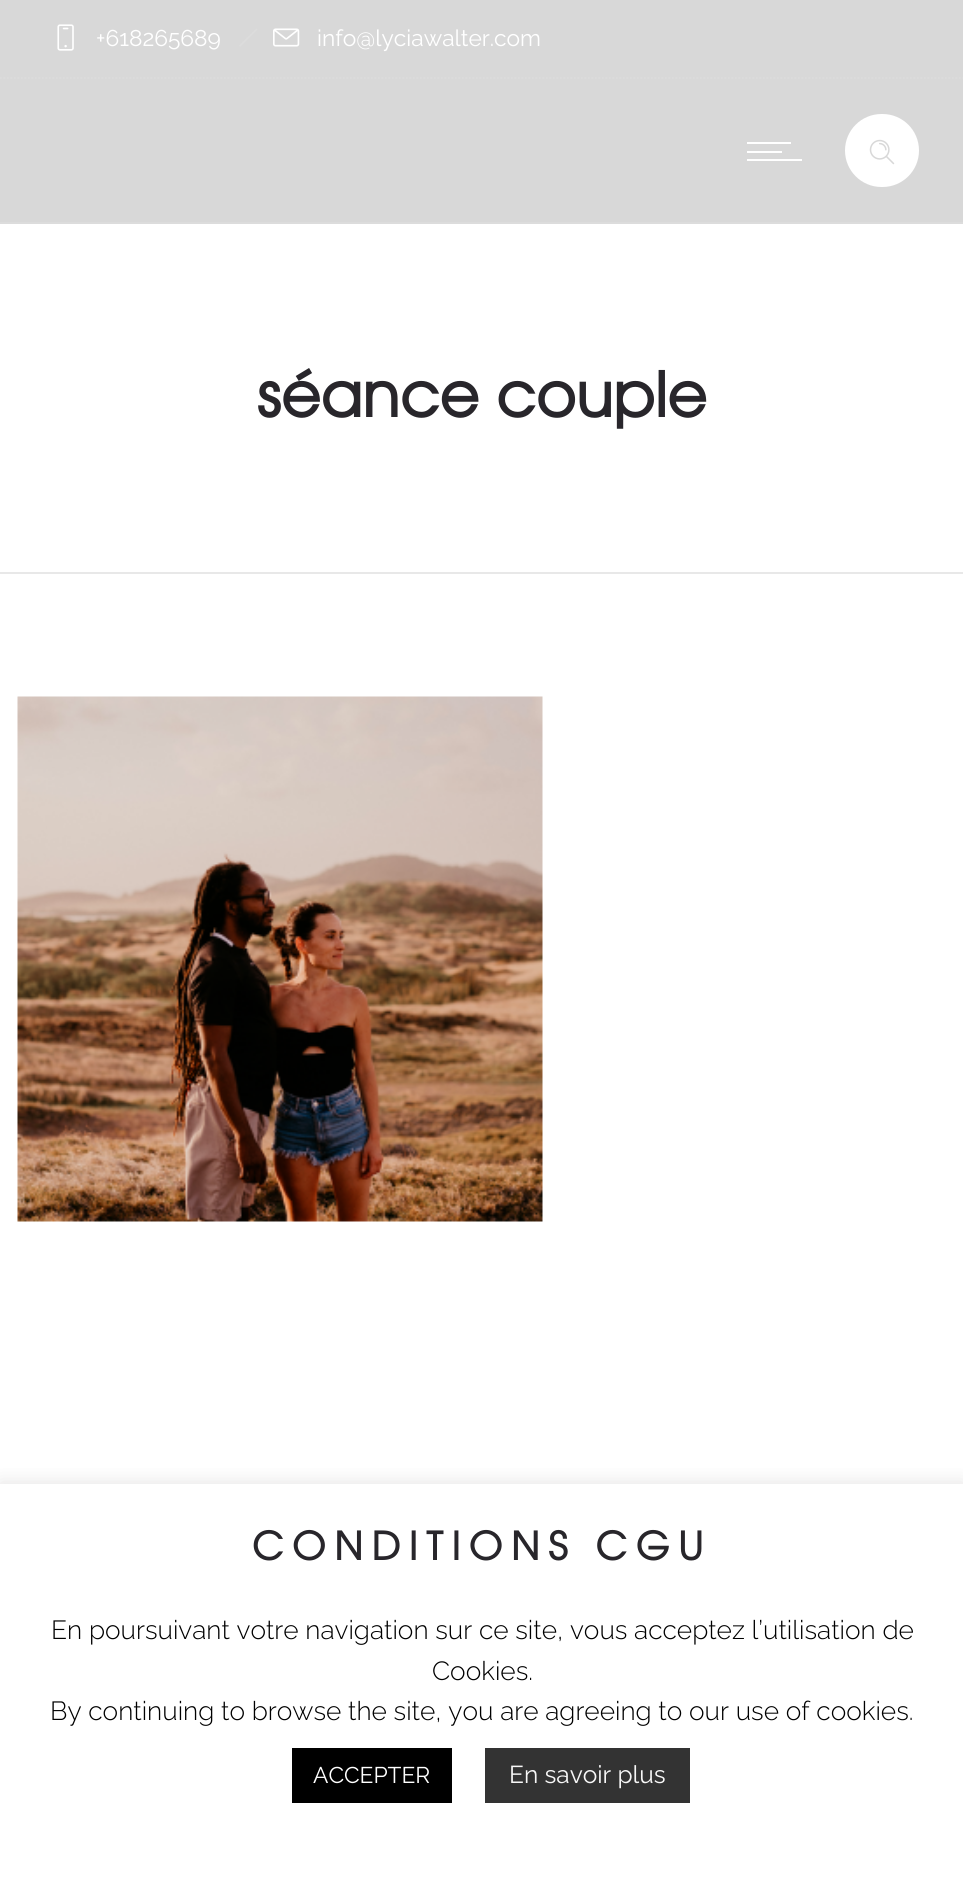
#include <cairo.h>
#include <math.h>
#include <stddef.h>


static void set_color(cairo_t *cr, unsigned color) {
    cairo_set_source_rgb(cr, (color >> 16) / 255.0, (color >> 8 & 255) / 255.0, (color & 255) / 255.0);
}

static void draw_text(cairo_t *cr, double x, double y, const char *s, const char *family, double size, int italic, int bold, unsigned color) {
    cairo_select_font_face(cr, family, italic ? CAIRO_FONT_SLANT_ITALIC : CAIRO_FONT_SLANT_NORMAL,
        bold ? CAIRO_FONT_WEIGHT_BOLD : CAIRO_FONT_WEIGHT_NORMAL);
    cairo_set_font_size(cr, size);
    set_color(cr, color);
    cairo_move_to(cr, x, y);
    cairo_show_text(cr, s);
}

static void draw_spaced(cairo_t *cr, double x, double y, const char *s, double letter, double word) {
    cairo_move_to(cr, x, y);
    while (*s) {
        char ch[5] = {0};
        int n = 0;
        do ch[n++] = *s++; while ((*s & 0xC0) == 0x80);
        cairo_show_text(cr, ch);
        cairo_rel_move_to(cr, letter + word * (*ch == ' '), 0);
    }
}

static void fill_rect(cairo_t *cr, double x, double y, double w, double h, unsigned color) {
    set_color(cr, color);
    cairo_rectangle(cr, x, y, w, h);
    cairo_fill(cr);
}

static void rounded_rect(cairo_t *cr, double x, double y, double w, double h, double r) {
    cairo_new_sub_path(cr);
    cairo_arc(cr, x + w - r, y + h - r, r, 0, M_PI / 2);
    cairo_arc(cr, x + r, y + h - r, r, M_PI / 2, M_PI);
    cairo_arc(cr, x + r, y + r, r, M_PI, 1.5 * M_PI);
    cairo_arc(cr, x + w - r, y + r, r, 1.5 * M_PI, 2 * M_PI);
    cairo_close_path(cr);
}

static void draw_shadow(cairo_t *cr, double x, double y, double w, double h, double r, double blur, double alpha) {
    cairo_push_group_with_content(cr, CAIRO_CONTENT_ALPHA);
    cairo_set_operator(cr, CAIRO_OPERATOR_SOURCE);
    for (int i = 15; i >= -15 && fmin(w, h) + blur * i / 3 > 0; i -= 2) {
        double e = blur * i / 6;
        cairo_set_source_rgba(cr, 0, 0, 0, alpha * erfc((i - 1) / 8.5) / 2);
        rounded_rect(cr, x - e, y - e, w + 2 * e, h + 2 * e, fmax(0, fmin(r + e + blur * .6, fmin(w, h) / 2 + e)));
        cairo_fill(cr);
    }
    cairo_pattern_t *soft = cairo_pop_group(cr);
    cairo_mask(cr, soft);
    cairo_pattern_destroy(soft);
}

static void draw_image(cairo_t *cr, const char *path, double x, double y, double w, double h) {
    cairo_surface_t *image = cairo_image_surface_create_from_png(path);
    cairo_save(cr);
    cairo_set_source_surface(cr, image, x, y);
    cairo_rectangle(cr, x, y, w, h);
    cairo_fill(cr);
    cairo_restore(cr);
    cairo_surface_destroy(image);
}

int main(void) {
    cairo_surface_t *surface = cairo_image_surface_create(CAIRO_FORMAT_RGB24, 963, 1881);
    cairo_t *cr = cairo_create(surface);
    cairo_font_options_t *options = cairo_font_options_create();
    cairo_font_options_set_hint_metrics(options, CAIRO_HINT_METRICS_OFF);
    cairo_font_options_set_hint_style(options, CAIRO_HINT_STYLE_NONE);
    cairo_set_font_options(cr, options);
    cairo_set_miter_limit(cr, 4);
    set_color(cr, 0xFFFFFF);
    cairo_paint(cr);
    fill_rect(cr, 0, 0, 963, 222, 0xD8D8D8);
    fill_rect(cr, 0, 222, 963, 2, 0xDCDCDC);
    cairo_new_path(cr);
    cairo_move_to(cr, 0, 78);
    cairo_line_to(cr, 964, 78);
    cairo_set_line_width(cr, 1.8);
    cairo_set_dash(cr, (double[]){1.75, 1.75}, 2, 0);
    cairo_stroke(cr);
    draw_image(cr, "assets/img1.png", 57, 24, 17, 27);
    draw_text(cr, 96, 46, "+618265689", "Raleway", 22.75, 0, 0, 0xFFFFFF);
    set_color(cr, 0xDCDCDC);
    cairo_new_path(cr);
    cairo_move_to(cr, 256.5, 28.5);
    cairo_line_to(cr, 257.5, 29.5);
    cairo_line_to(cr, 240, 47);
    cairo_line_to(cr, 239, 45.5);
    cairo_close_path(cr);
    cairo_fill(cr);
    draw_image(cr, "assets/img2.png", 273, 28, 27, 19);
    draw_text(cr, 317, 46, "info@lyciawalter.com", "Raleway", 22.75, 0, 0, 0xFFFFFF);
    fill_rect(cr, 747, 142, 44, 2, 0xFFFFFF);
    fill_rect(cr, 747, 151, 35, 2, 0xFFFFFF);
    fill_rect(cr, 747, 159, 55, 2, 0xFFFFFF);
    rounded_rect(cr, 845, 114, 74, 73, 36.5);
    cairo_fill(cr);
    draw_image(cr, "assets/img3.png", 869, 139, 26, 26);
    draw_text(cr, 257, 417, "séance couple", "TeX Gyre Adventor", 61.25, 0, 1, 0x28262B);
    fill_rect(cr, 0, 572, 963, 2, 0xE8E8E8);
    draw_image(cr, "assets/img4.png", 17, 696, 526, 526);
    cairo_save(cr);
    cairo_rectangle(cr, 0, 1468, 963, 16);
    cairo_clip(cr);
    set_color(cr, 0xACABAB);
    draw_shadow(cr, 0, 1482, 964, 398, 0, 9, 0.3);
    cairo_restore(cr);
    cairo_set_font_size(cr, 38.5);
    set_color(cr, 0x28262B);
    draw_spaced(cr, 252, 1560, "CONDITIONS CGU", 8.75, 0);
    draw_text(cr, 51, 1639, "En poursuivant votre navigation sur ce site, vous acceptez l’utilisation de", "Raleway Light", 26.25, 0, 0, 0x000000);
    draw_text(cr, 432, 1680, "Cookies.", "Raleway Light", 26.25, 0, 0, 0x000000);
    draw_text(cr, 50, 1720, "By continuing to browse the site, you are agreeing to our use of cookies.", "Raleway Light", 26.25, 0, 0, 0x000000);
    fill_rect(cr, 292, 1748, 160, 55, 0x000000);
    draw_text(cr, 313, 1783, "ACCEPTER", "Raleway", 22.75, 0, 0, 0xFFFFFF);
    fill_rect(cr, 485, 1748, 205, 55, 0x333333);
    draw_text(cr, 509, 1783, "En savoir plus", "Raleway", 24.5, 0, 0, 0xF7F7F7);
    cairo_surface_write_to_png(surface, "output.png");
    cairo_font_options_destroy(options);
    cairo_destroy(cr);
    cairo_surface_destroy(surface);
    return 0;
}
